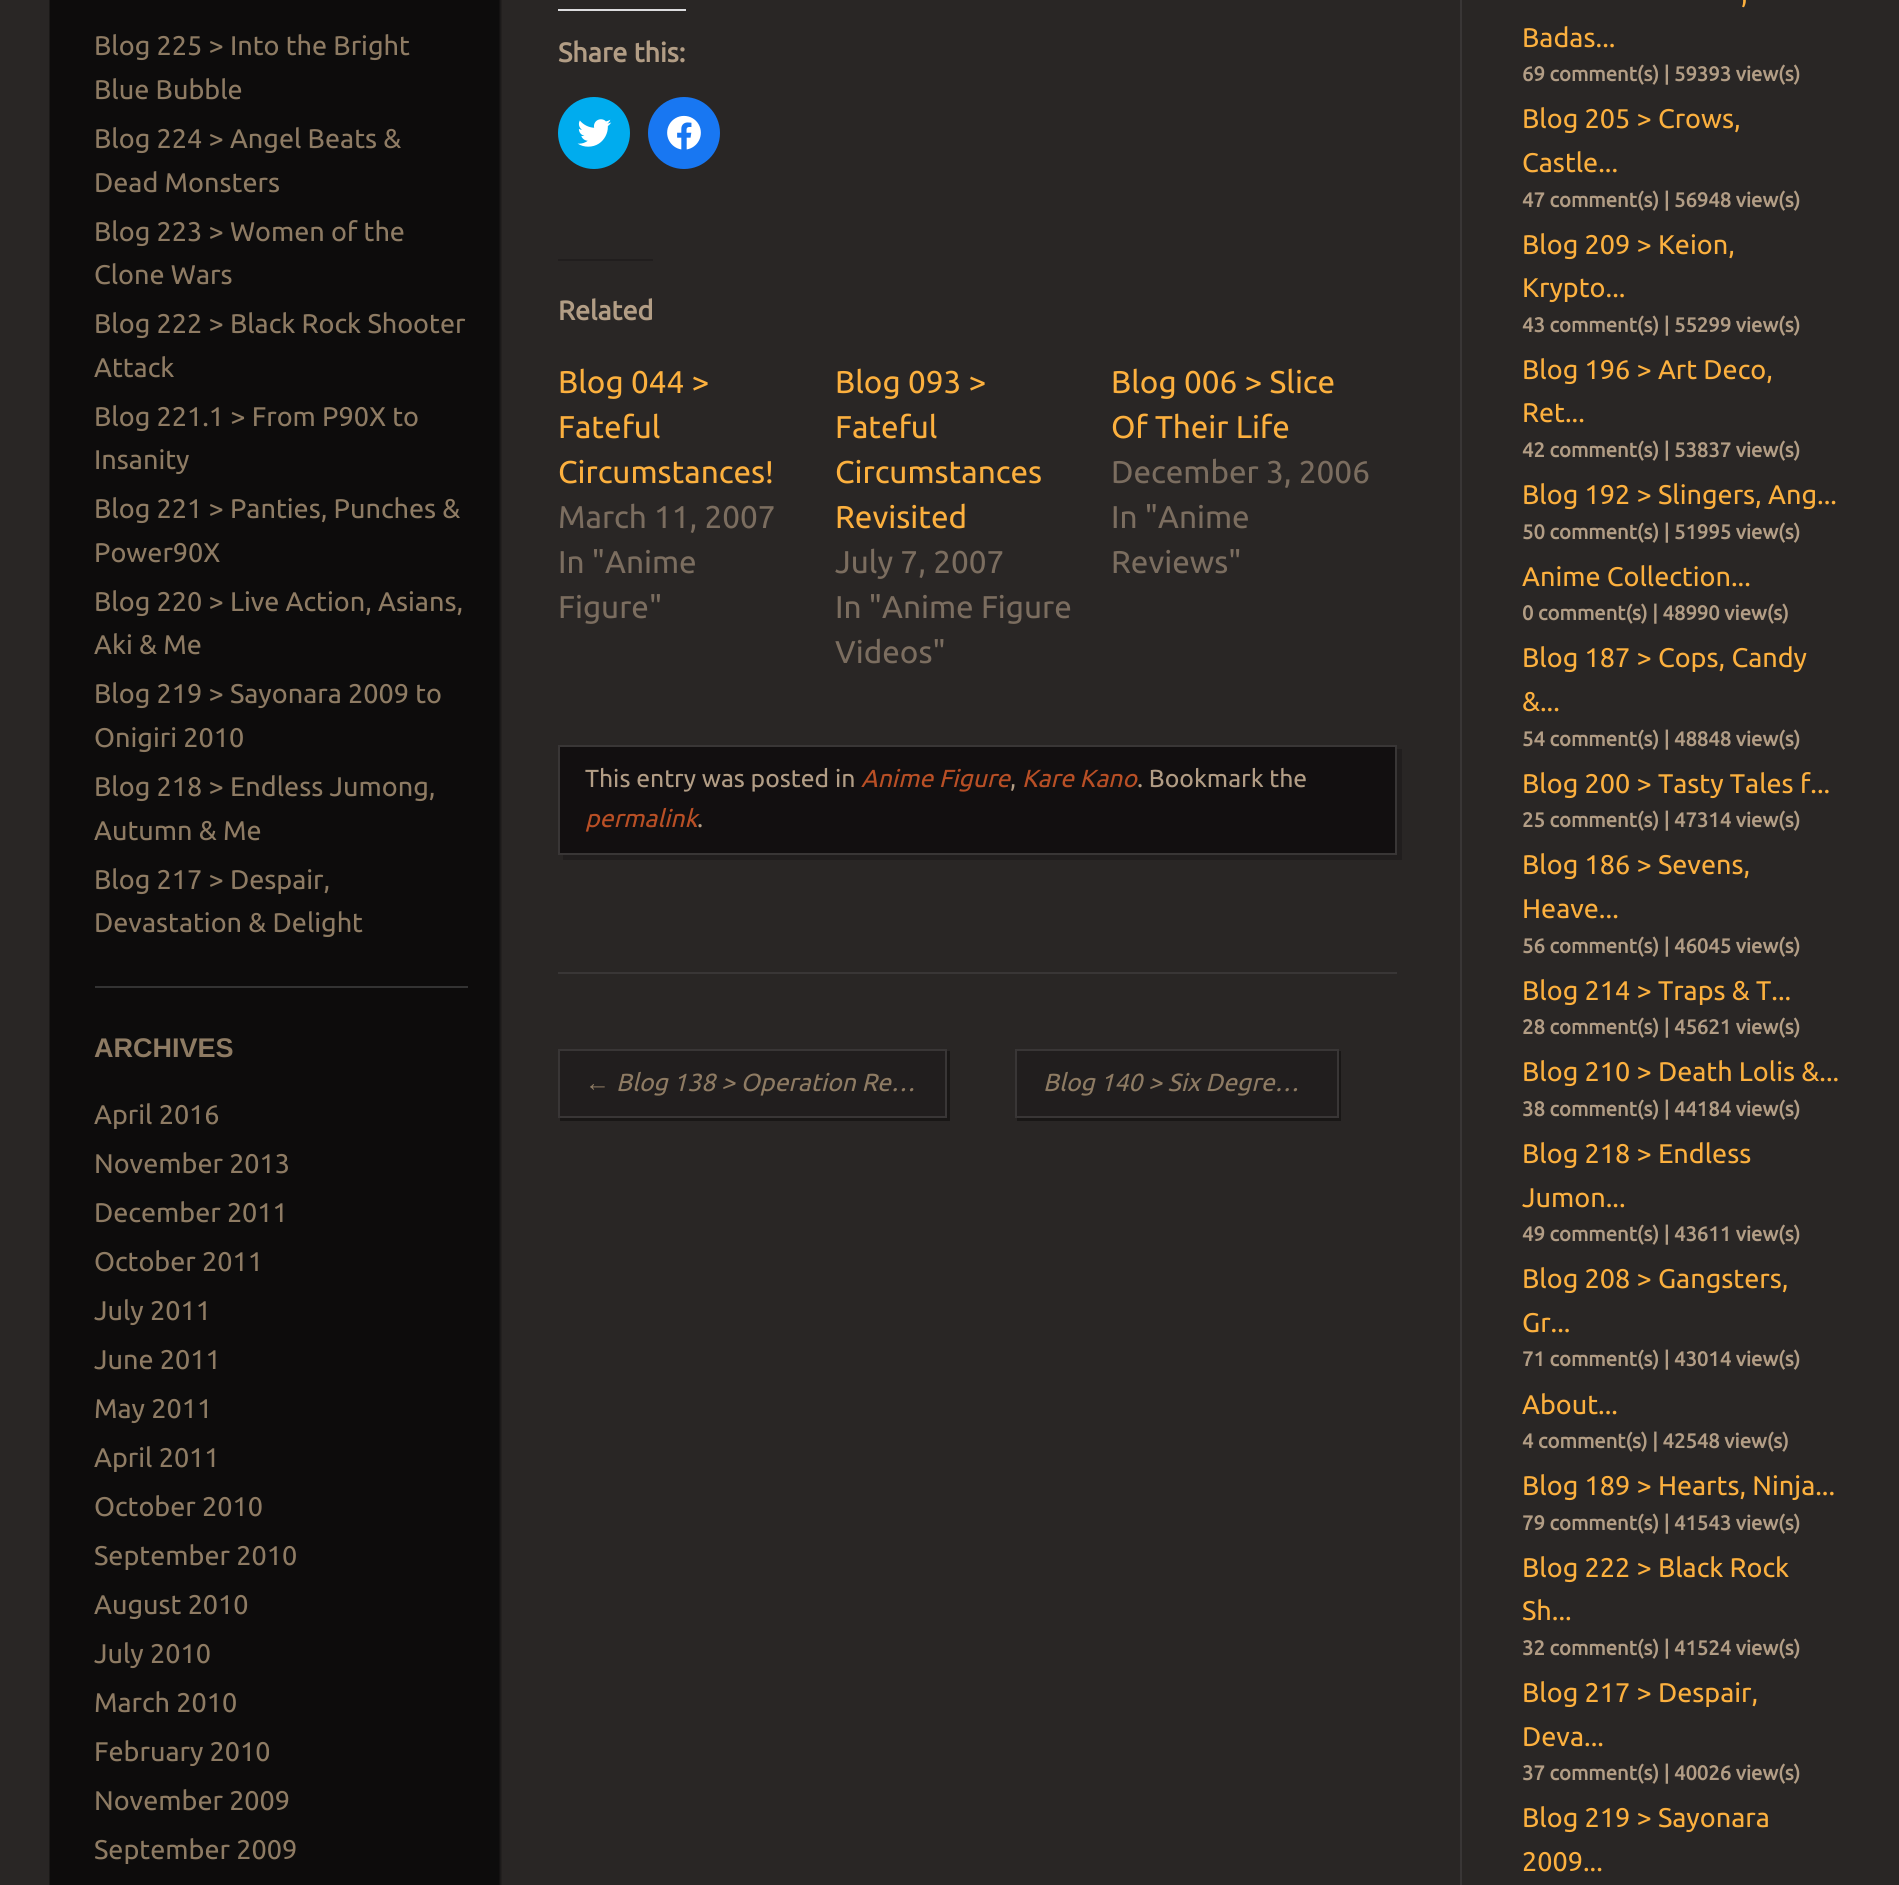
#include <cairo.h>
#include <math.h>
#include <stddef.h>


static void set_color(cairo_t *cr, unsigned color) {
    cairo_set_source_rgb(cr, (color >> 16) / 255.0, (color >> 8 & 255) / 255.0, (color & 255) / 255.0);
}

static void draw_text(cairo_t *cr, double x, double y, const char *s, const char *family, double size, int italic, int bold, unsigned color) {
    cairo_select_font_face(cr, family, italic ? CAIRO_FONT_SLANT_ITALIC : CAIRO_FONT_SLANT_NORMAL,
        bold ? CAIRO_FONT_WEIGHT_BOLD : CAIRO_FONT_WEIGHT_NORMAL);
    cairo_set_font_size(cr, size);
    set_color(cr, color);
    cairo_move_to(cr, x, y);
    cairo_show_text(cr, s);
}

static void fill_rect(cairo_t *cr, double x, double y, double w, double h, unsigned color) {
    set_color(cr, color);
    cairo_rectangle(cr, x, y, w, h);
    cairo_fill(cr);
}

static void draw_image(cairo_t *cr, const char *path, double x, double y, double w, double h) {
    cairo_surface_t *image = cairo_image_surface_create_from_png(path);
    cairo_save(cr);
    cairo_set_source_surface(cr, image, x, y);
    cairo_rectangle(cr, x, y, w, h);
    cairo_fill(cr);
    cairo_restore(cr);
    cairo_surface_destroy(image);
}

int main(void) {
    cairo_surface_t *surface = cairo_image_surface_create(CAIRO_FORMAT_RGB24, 1899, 1885);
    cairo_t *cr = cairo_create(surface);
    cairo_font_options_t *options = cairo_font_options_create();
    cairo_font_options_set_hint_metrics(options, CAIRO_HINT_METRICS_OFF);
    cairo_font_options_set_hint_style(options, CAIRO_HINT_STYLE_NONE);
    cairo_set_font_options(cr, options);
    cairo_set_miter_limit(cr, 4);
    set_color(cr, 0x292625);
    cairo_paint(cr);
    draw_image(cr, "assets/img1.png", 49, 0, 453, 1885);
    draw_text(cr, 94, 55, "Blog 225 > Into the Bright", "Ubuntu", 27, 0, 0, 0x8E7B63);
    draw_text(cr, 94, 99, "Blue Bubble", "Ubuntu", 27, 0, 0, 0x8E7B63);
    draw_text(cr, 94, 148, "Blog 224 > Angel Beats &", "Ubuntu", 27, 0, 0, 0x8E7B63);
    draw_text(cr, 94, 192, "Dead Monsters", "Ubuntu", 27, 0, 0, 0x8E7B63);
    draw_text(cr, 94, 241, "Blog 223 > Women of the", "Ubuntu", 27, 0, 0, 0x8E7B63);
    draw_text(cr, 94, 284, "Clone Wars", "Ubuntu", 27, 0, 0, 0x8E7B63);
    draw_text(cr, 94, 333, "Blog 222 > Black Rock Shooter", "Ubuntu", 27, 0, 0, 0x8E7B63);
    draw_text(cr, 94, 377, "Attack", "Ubuntu", 27, 0, 0, 0x8E7B63);
    draw_text(cr, 94, 426, "Blog 221.1 > From P90X to", "Ubuntu", 27, 0, 0, 0x8E7B63);
    draw_text(cr, 94, 469, "Insanity", "Ubuntu", 27, 0, 0, 0x8E7B63);
    draw_text(cr, 94, 518, "Blog 221 > Panties, Punches &", "Ubuntu", 27, 0, 0, 0x8E7B63);
    draw_text(cr, 94, 562, "Power90X", "Ubuntu", 27, 0, 0, 0x8E7B63);
    draw_text(cr, 94, 611, "Blog 220 > Live Action, Asians,", "Ubuntu", 27, 0, 0, 0x8E7B63);
    draw_text(cr, 94, 654, "Aki & Me", "Ubuntu", 27, 0, 0, 0x8E7B63);
    draw_text(cr, 94, 703, "Blog 219 > Sayonara 2009 to", "Ubuntu", 27, 0, 0, 0x8E7B63);
    draw_text(cr, 94, 747, "Onigiri 2010", "Ubuntu", 27, 0, 0, 0x8E7B63);
    draw_text(cr, 94, 796, "Blog 218 > Endless Jumong,", "Ubuntu", 27, 0, 0, 0x8E7B63);
    draw_text(cr, 94, 840, "Autumn & Me", "Ubuntu", 27, 0, 0, 0x8E7B63);
    draw_text(cr, 94, 889, "Blog 217 > Despair,", "Ubuntu", 27, 0, 0, 0x8E7B63);
    draw_text(cr, 94, 932, "Devastation & Delight", "Ubuntu", 27, 0, 0, 0x8E7B63);
    fill_rect(cr, 95, 986, 373, 2, 0x333333);
    draw_text(cr, 94, 1057, "ARCHIVES", "Liberation Sans", 27, 0, 1, 0x8E7B63);
    draw_text(cr, 94, 1124, "April 2016", "Ubuntu", 27, 0, 0, 0x8E7B63);
    draw_text(cr, 94, 1173, "November 2013", "Ubuntu", 27, 0, 0, 0x8E7B63);
    draw_text(cr, 94, 1222, "December 2011", "Ubuntu", 27, 0, 0, 0x8E7B63);
    draw_text(cr, 94, 1271, "October 2011", "Ubuntu", 27, 0, 0, 0x8E7B63);
    draw_text(cr, 94, 1320, "July 2011", "Ubuntu", 27, 0, 0, 0x8E7B63);
    draw_text(cr, 94, 1369, "June 2011", "Ubuntu", 27, 0, 0, 0x8E7B63);
    draw_text(cr, 94, 1418, "May 2011", "Ubuntu", 27, 0, 0, 0x8E7B63);
    draw_text(cr, 94, 1467, "April 2011", "Ubuntu", 27, 0, 0, 0x8E7B63);
    draw_text(cr, 94, 1516, "October 2010", "Ubuntu", 27, 0, 0, 0x8E7B63);
    draw_text(cr, 94, 1565, "September 2010", "Ubuntu", 27, 0, 0, 0x8E7B63);
    draw_text(cr, 94, 1614, "August 2010", "Ubuntu", 27, 0, 0, 0x8E7B63);
    draw_text(cr, 94, 1663, "July 2010", "Ubuntu", 27, 0, 0, 0x8E7B63);
    draw_text(cr, 94, 1712, "March 2010", "Ubuntu", 27, 0, 0, 0x8E7B63);
    draw_text(cr, 94, 1761, "February 2010", "Ubuntu", 27, 0, 0, 0x8E7B63);
    draw_text(cr, 94, 1810, "November 2009", "Ubuntu", 27, 0, 0, 0x8E7B63);
    draw_text(cr, 94, 1859, "September 2009", "Ubuntu", 27, 0, 0, 0x8E7B63);
    fill_rect(cr, 558, 972, 839, 2, 0x393636);
    fill_rect(cr, 558, 9, 128, 2, 0xDCDCDE);
    draw_text(cr, 558, 62, "Share this:", "Ubuntu", 27, 0, 1, 0xB29D85);
    set_color(cr, 0x00ACEE);
    cairo_new_path(cr);
    cairo_arc(cr, 594, 133, 36, 0, 2 * M_PI);
    cairo_fill(cr);
    draw_image(cr, "assets/img2.png", 577, 119, 35, 28);
    set_color(cr, 0x1877F2);
    cairo_arc(cr, 684, 133, 36, 0, 2 * M_PI);
    cairo_fill(cr);
    draw_image(cr, "assets/img3.png", 667, 115, 34, 35);
    fill_rect(cr, 558, 259, 95, 2, 0x211E1E);
    draw_text(cr, 558, 320, "Related", "Ubuntu", 27, 0, 1, 0xB29D85);
    draw_text(cr, 558, 393, "Blog 044 >", "Ubuntu", 31.5, 0, 0, 0xFCB03E);
    draw_text(cr, 558, 438, "Fateful", "Ubuntu", 31.5, 0, 0, 0xFCB03E);
    draw_text(cr, 558, 483, "Circumstances!", "Ubuntu", 31.5, 0, 0, 0xFCB03E);
    draw_text(cr, 558, 528, "March 11, 2007", "Ubuntu", 31.5, 0, 0, 0x7B6D5F);
    draw_text(cr, 558, 573, "In \"Anime", "Ubuntu", 31.5, 0, 0, 0x7B6D5F);
    draw_text(cr, 558, 618, "Figure\"", "Ubuntu", 31.5, 0, 0, 0x7B6D5F);
    draw_text(cr, 835, 393, "Blog 093 >", "Ubuntu", 31.5, 0, 0, 0xFCB03E);
    draw_text(cr, 835, 438, "Fateful", "Ubuntu", 31.5, 0, 0, 0xFCB03E);
    draw_text(cr, 835, 483, "Circumstances", "Ubuntu", 31.5, 0, 0, 0xFCB03E);
    draw_text(cr, 835, 528, "Revisited", "Ubuntu", 31.5, 0, 0, 0xFCB03E);
    draw_text(cr, 835, 573, "July 7, 2007", "Ubuntu", 31.5, 0, 0, 0x7B6D5F);
    draw_text(cr, 835, 618, "In \"Anime Figure", "Ubuntu", 31.5, 0, 0, 0x7B6D5F);
    draw_text(cr, 835, 663, "Videos\"", "Ubuntu", 31.5, 0, 0, 0x7B6D5F);
    draw_text(cr, 1111, 393, "Blog 006 > Slice", "Ubuntu", 31.5, 0, 0, 0xFCB03E);
    draw_text(cr, 1111, 438, "Of Their Life", "Ubuntu", 31.5, 0, 0, 0xFCB03E);
    draw_text(cr, 1111, 483, "December 3, 2006", "Ubuntu", 31.5, 0, 0, 0x7B6D5F);
    draw_text(cr, 1111, 528, "In \"Anime", "Ubuntu", 31.5, 0, 0, 0x7B6D5F);
    draw_text(cr, 1111, 573, "Reviews\"", "Ubuntu", 31.5, 0, 0, 0x7B6D5F);
    set_color(cr, 0x211E1E);
    cairo_new_path(cr);
    cairo_move_to(cr, 563, 855);
    cairo_line_to(cr, 563, 860);
    cairo_line_to(cr, 1402, 860);
    cairo_line_to(cr, 1402, 749);
    cairo_line_to(cr, 1397, 749);
    cairo_line_to(cr, 1397, 855);
    cairo_close_path(cr);
    cairo_fill(cr);
    set_color(cr, 0x120F10);
    cairo_rectangle(cr, 559, 746, 837, 108);
    cairo_fill_preserve(cr);
    set_color(cr, 0x393636);
    cairo_stroke(cr);
    draw_text(cr, 585, 787, "This entry was posted in", "Ubuntu", 24.75, 0, 0, 0xB29D85);
    draw_text(cr, 861, 787, "Anime Figure", "Ubuntu", 24.75, 1, 0, 0xB94F25);
    draw_text(cr, 1010, 787, ",", "Ubuntu", 24.75, 0, 0, 0xB29D85);
    draw_text(cr, 1022, 787, "Kare Kano", "Ubuntu", 24.75, 1, 0, 0xB94F25);
    draw_text(cr, 1137, 787, ". Bookmark the", "Ubuntu", 24.75, 0, 0, 0xB29D85);
    draw_text(cr, 585, 827, "permalink", "Ubuntu", 24.75, 1, 0, 0xB94F25);
    draw_text(cr, 697, 827, ".", "Ubuntu", 24.75, 0, 0, 0xB29D85);
    set_color(cr, 0x191716);
    cairo_new_path(cr);
    cairo_move_to(cr, 560, 1118);
    cairo_line_to(cr, 560, 1121);
    cairo_line_to(cr, 950, 1121);
    cairo_line_to(cr, 950, 1051);
    cairo_line_to(cr, 947, 1051);
    cairo_line_to(cr, 947, 1118);
    cairo_close_path(cr);
    cairo_fill(cr);
    set_color(cr, 0x211E1E);
    cairo_rectangle(cr, 559, 1050, 387, 67);
    cairo_fill_preserve(cr);
    set_color(cr, 0x393636);
    cairo_stroke(cr);
    draw_text(cr, 585, 1091, "←", "Liberation Sans", 24.75, 1, 0, 0x8E7B63);
    draw_text(cr, 616, 1091, "Blog 138 > Operation Re…", "Ubuntu", 24.75, 1, 0, 0x8E7B63);
    set_color(cr, 0x191716);
    cairo_new_path(cr);
    cairo_move_to(cr, 1017, 1118);
    cairo_line_to(cr, 1017, 1121);
    cairo_line_to(cr, 1341, 1121);
    cairo_line_to(cr, 1341, 1051);
    cairo_line_to(cr, 1339, 1051);
    cairo_line_to(cr, 1339, 1118);
    cairo_close_path(cr);
    cairo_fill(cr);
    set_color(cr, 0x211E1E);
    cairo_rectangle(cr, 1016, 1050, 322, 67);
    cairo_fill_preserve(cr);
    set_color(cr, 0x393636);
    cairo_stroke(cr);
    draw_text(cr, 1043, 1091, "Blog 140 > Six Degre…", "Ubuntu", 24.75, 1, 0, 0x8E7B63);
    fill_rect(cr, 1460, 0, 2, 1885, 0x393636);
    draw_text(cr, 1741, 3, ",", "Ubuntu", 27, 0, 0, 0xFCB03E);
    draw_text(cr, 1522, 47, "Badas...", "Ubuntu", 27, 0, 0, 0xFCB03E);
    draw_text(cr, 1522, 81, "69 comment(s) | 59393 view(s)", "Ubuntu", 20.25, 0, 1, 0xB29D85);
    draw_text(cr, 1522, 128, "Blog 205 > Crows,", "Ubuntu", 27, 0, 0, 0xFCB03E);
    draw_text(cr, 1522, 172, "Castle...", "Ubuntu", 27, 0, 0, 0xFCB03E);
    draw_text(cr, 1522, 207, "47 comment(s) | 56948 view(s)", "Ubuntu", 20.25, 0, 1, 0xB29D85);
    draw_text(cr, 1522, 254, "Blog 209 > Keion,", "Ubuntu", 27, 0, 0, 0xFCB03E);
    draw_text(cr, 1522, 297, "Krypto...", "Ubuntu", 27, 0, 0, 0xFCB03E);
    draw_text(cr, 1522, 332, "43 comment(s) | 55299 view(s)", "Ubuntu", 20.25, 0, 1, 0xB29D85);
    draw_text(cr, 1522, 379, "Blog 196 > Art Deco,", "Ubuntu", 27, 0, 0, 0xFCB03E);
    draw_text(cr, 1522, 422, "Ret...", "Ubuntu", 27, 0, 0, 0xFCB03E);
    draw_text(cr, 1522, 457, "42 comment(s) | 53837 view(s)", "Ubuntu", 20.25, 0, 1, 0xB29D85);
    draw_text(cr, 1522, 504, "Blog 192 > Slingers, Ang...", "Ubuntu", 27, 0, 0, 0xFCB03E);
    draw_text(cr, 1522, 539, "50 comment(s) | 51995 view(s)", "Ubuntu", 20.25, 0, 1, 0xB29D85);
    draw_text(cr, 1522, 586, "Anime Collection...", "Ubuntu", 27, 0, 0, 0xFCB03E);
    draw_text(cr, 1522, 620, "0 comment(s) | 48990 view(s)", "Ubuntu", 20.25, 0, 1, 0xB29D85);
    draw_text(cr, 1522, 667, "Blog 187 > Cops, Candy", "Ubuntu", 27, 0, 0, 0xFCB03E);
    draw_text(cr, 1522, 711, "&...", "Ubuntu", 27, 0, 0, 0xFCB03E);
    draw_text(cr, 1522, 746, "54 comment(s) | 48848 view(s)", "Ubuntu", 20.25, 0, 1, 0xB29D85);
    draw_text(cr, 1522, 793, "Blog 200 > Tasty Tales f...", "Ubuntu", 27, 0, 0, 0xFCB03E);
    draw_text(cr, 1522, 827, "25 comment(s) | 47314 view(s)", "Ubuntu", 20.25, 0, 1, 0xB29D85);
    draw_text(cr, 1522, 874, "Blog 186 > Sevens,", "Ubuntu", 27, 0, 0, 0xFCB03E);
    draw_text(cr, 1522, 918, "Heave...", "Ubuntu", 27, 0, 0, 0xFCB03E);
    draw_text(cr, 1522, 953, "56 comment(s) | 46045 view(s)", "Ubuntu", 20.25, 0, 1, 0xB29D85);
    draw_text(cr, 1522, 1000, "Blog 214 > Traps & T...", "Ubuntu", 27, 0, 0, 0xFCB03E);
    draw_text(cr, 1522, 1034, "28 comment(s) | 45621 view(s)", "Ubuntu", 20.25, 0, 1, 0xB29D85);
    draw_text(cr, 1522, 1081, "Blog 210 > Death Lolis &...", "Ubuntu", 27, 0, 0, 0xFCB03E);
    draw_text(cr, 1522, 1116, "38 comment(s) | 44184 view(s)", "Ubuntu", 20.25, 0, 1, 0xB29D85);
    draw_text(cr, 1522, 1163, "Blog 218 > Endless", "Ubuntu", 27, 0, 0, 0xFCB03E);
    draw_text(cr, 1522, 1207, "Jumon...", "Ubuntu", 27, 0, 0, 0xFCB03E);
    draw_text(cr, 1522, 1241, "49 comment(s) | 43611 view(s)", "Ubuntu", 20.25, 0, 1, 0xB29D85);
    draw_text(cr, 1522, 1288, "Blog 208 > Gangsters,", "Ubuntu", 27, 0, 0, 0xFCB03E);
    draw_text(cr, 1522, 1332, "Gr...", "Ubuntu", 27, 0, 0, 0xFCB03E);
    draw_text(cr, 1522, 1366, "71 comment(s) | 43014 view(s)", "Ubuntu", 20.25, 0, 1, 0xB29D85);
    draw_text(cr, 1522, 1414, "About...", "Ubuntu", 27, 0, 0, 0xFCB03E);
    draw_text(cr, 1522, 1448, "4 comment(s) | 42548 view(s)", "Ubuntu", 20.25, 0, 1, 0xB29D85);
    draw_text(cr, 1522, 1495, "Blog 189 > Hearts, Ninja...", "Ubuntu", 27, 0, 0, 0xFCB03E);
    draw_text(cr, 1522, 1530, "79 comment(s) | 41543 view(s)", "Ubuntu", 20.25, 0, 1, 0xB29D85);
    draw_text(cr, 1522, 1577, "Blog 222 > Black Rock", "Ubuntu", 27, 0, 0, 0xFCB03E);
    draw_text(cr, 1522, 1620, "Sh...", "Ubuntu", 27, 0, 0, 0xFCB03E);
    draw_text(cr, 1522, 1655, "32 comment(s) | 41524 view(s)", "Ubuntu", 20.25, 0, 1, 0xB29D85);
    draw_text(cr, 1522, 1702, "Blog 217 > Despair,", "Ubuntu", 27, 0, 0, 0xFCB03E);
    draw_text(cr, 1522, 1746, "Deva...", "Ubuntu", 27, 0, 0, 0xFCB03E);
    draw_text(cr, 1522, 1780, "37 comment(s) | 40026 view(s)", "Ubuntu", 20.25, 0, 1, 0xB29D85);
    draw_text(cr, 1522, 1827, "Blog 219 > Sayonara", "Ubuntu", 27, 0, 0, 0xFCB03E);
    draw_text(cr, 1522, 1871, "2009...", "Ubuntu", 27, 0, 0, 0xFCB03E);
    cairo_surface_write_to_png(surface, "output.png");
    cairo_font_options_destroy(options);
    cairo_destroy(cr);
    cairo_surface_destroy(surface);
    return 0;
}
